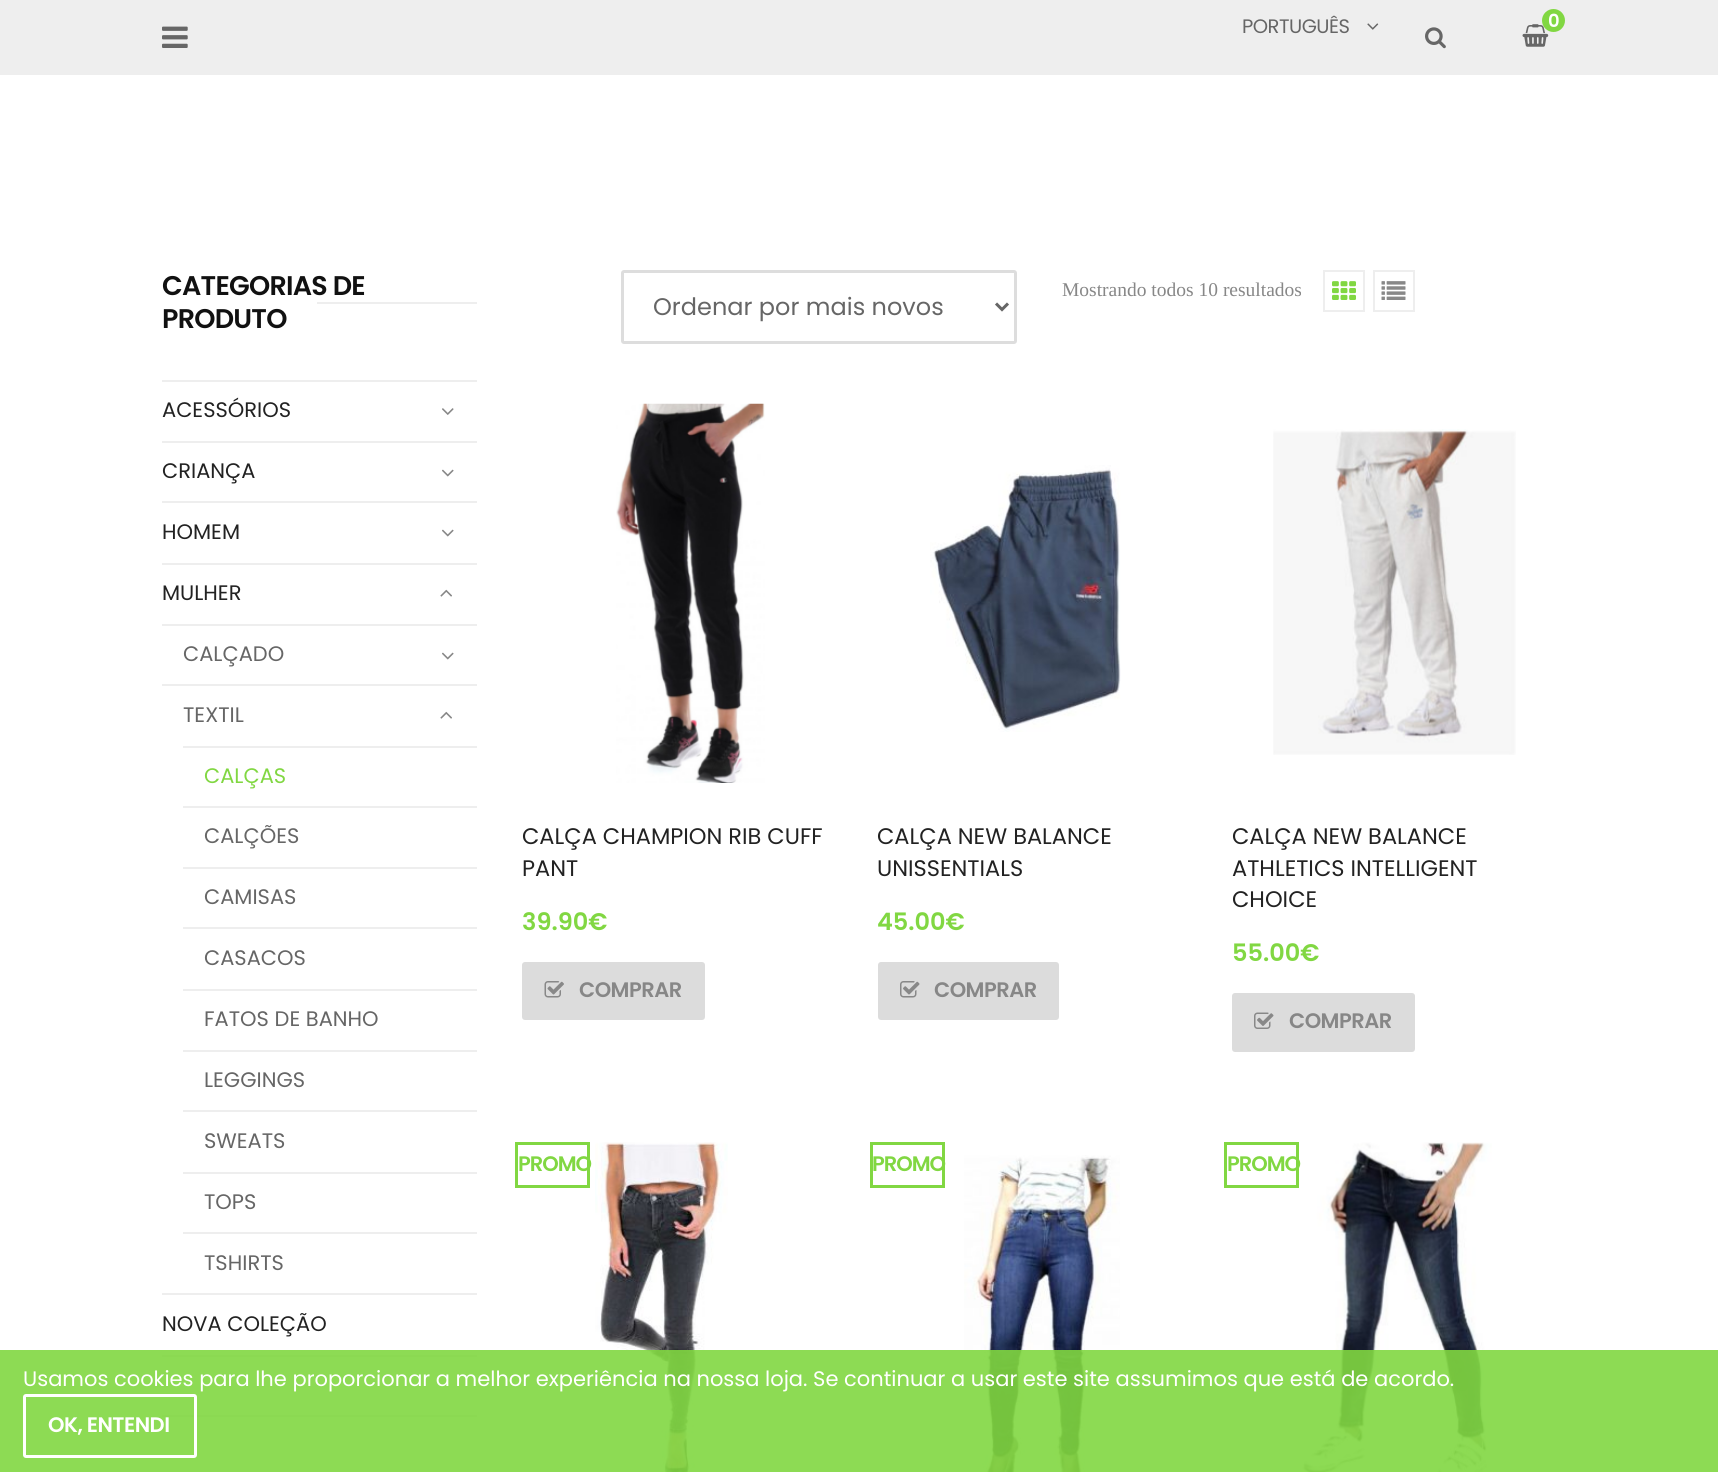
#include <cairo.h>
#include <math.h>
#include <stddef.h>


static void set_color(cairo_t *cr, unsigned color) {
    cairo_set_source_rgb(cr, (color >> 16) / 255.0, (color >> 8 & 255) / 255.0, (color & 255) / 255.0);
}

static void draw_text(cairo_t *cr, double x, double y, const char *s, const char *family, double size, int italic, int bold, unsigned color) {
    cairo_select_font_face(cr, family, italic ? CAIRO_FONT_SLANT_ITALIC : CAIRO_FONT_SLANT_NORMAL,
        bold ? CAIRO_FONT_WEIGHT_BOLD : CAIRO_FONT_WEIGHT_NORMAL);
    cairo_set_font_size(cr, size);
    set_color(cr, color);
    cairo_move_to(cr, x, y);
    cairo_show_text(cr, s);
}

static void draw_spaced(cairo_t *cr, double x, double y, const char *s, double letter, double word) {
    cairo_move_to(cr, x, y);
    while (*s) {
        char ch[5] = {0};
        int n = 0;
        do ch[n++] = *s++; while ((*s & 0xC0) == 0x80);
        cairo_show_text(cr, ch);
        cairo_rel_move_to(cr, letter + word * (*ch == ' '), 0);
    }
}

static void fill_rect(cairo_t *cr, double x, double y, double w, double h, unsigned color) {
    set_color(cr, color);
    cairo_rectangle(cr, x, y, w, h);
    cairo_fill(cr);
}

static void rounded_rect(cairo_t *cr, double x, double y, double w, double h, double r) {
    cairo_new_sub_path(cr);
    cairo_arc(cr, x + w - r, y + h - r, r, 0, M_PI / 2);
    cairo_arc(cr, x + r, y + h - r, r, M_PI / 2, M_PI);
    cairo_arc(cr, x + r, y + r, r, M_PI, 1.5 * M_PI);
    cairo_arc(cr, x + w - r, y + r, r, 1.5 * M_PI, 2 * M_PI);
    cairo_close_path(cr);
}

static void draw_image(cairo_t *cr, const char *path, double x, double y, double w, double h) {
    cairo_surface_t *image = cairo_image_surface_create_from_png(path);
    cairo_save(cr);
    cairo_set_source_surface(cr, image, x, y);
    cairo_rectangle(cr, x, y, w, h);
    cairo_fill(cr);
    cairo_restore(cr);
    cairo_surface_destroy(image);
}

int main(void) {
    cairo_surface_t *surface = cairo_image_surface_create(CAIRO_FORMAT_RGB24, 1718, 1472);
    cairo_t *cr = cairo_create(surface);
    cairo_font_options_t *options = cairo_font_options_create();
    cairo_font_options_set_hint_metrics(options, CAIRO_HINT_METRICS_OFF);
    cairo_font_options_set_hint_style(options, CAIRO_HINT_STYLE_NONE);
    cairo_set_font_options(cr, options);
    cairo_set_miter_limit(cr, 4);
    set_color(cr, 0xFFFFFF);
    cairo_paint(cr);
    fill_rect(cr, 0, 0, 1718, 75, 0xEEEEEE);
    cairo_select_font_face(cr, "Poppins", CAIRO_FONT_SLANT_NORMAL, CAIRO_FONT_WEIGHT_NORMAL);
    cairo_set_font_size(cr, 19.5);
    set_color(cr, 0x666666);
    draw_spaced(cr, 1242, 33, "PORTUGUÊS", -0.5, 0);
    draw_image(cr, "assets/img1.png", 1367, 23, 12, 7);
    draw_image(cr, "assets/img2.png", 1522, 24, 27, 23);
    set_color(cr, 0x81D742);
    cairo_arc(cr, 1553.5, 20.5, 11.5, 0, 2 * M_PI);
    cairo_fill(cr);
    cairo_select_font_face(cr, "Poppins SemiBold", CAIRO_FONT_SLANT_NORMAL, CAIRO_FONT_WEIGHT_NORMAL);
    cairo_set_font_size(cr, 18);
    set_color(cr, 0xFFFFFF);
    draw_spaced(cr, 1548, 27, "0", -0.5, 0);
    draw_image(cr, "assets/img3.png", 1425, 27, 21, 22);
    draw_image(cr, "assets/img4.png", 162, 26, 26, 22);
    cairo_set_font_size(cr, 27);
    set_color(cr, 0x111111);
    draw_spaced(cr, 162, 295, "CATEGORIAS DE", -0.75, 0);
    fill_rect(cr, 317, 302, 160, 2, 0xEEEEEE);
    set_color(cr, 0x111111);
    draw_spaced(cr, 162, 328, "PRODUTO", -0.75, 0);
    fill_rect(cr, 162, 380, 315, 2, 0xEEEEEE);
    fill_rect(cr, 162, 441, 315, 2, 0xEEEEEE);
    draw_text(cr, 162, 417, "ACESSÓRIOS", "Poppins", 21, 0, 0, 0x222222);
    draw_image(cr, "assets/img5.png", 442, 408, 12, 7);
    fill_rect(cr, 162, 501, 315, 2, 0xEEEEEE);
    draw_text(cr, 162, 478, "CRIANÇA", "Poppins", 21, 0, 0, 0x222222);
    draw_image(cr, "assets/img6.png", 442, 469, 12, 8);
    fill_rect(cr, 162, 563, 315, 2, 0xEEEEEE);
    draw_text(cr, 162, 539, "HOMEM", "Poppins", 21, 0, 0, 0x222222);
    draw_image(cr, "assets/img6.png", 442, 529, 12, 8);
    fill_rect(cr, 162, 1293, 315, 2, 0xEEEEEE);
    draw_text(cr, 162, 600, "MULHER", "Poppins", 21, 0, 0, 0x222222);
    draw_image(cr, "assets/img7.png", 440, 589, 12, 8);
    fill_rect(cr, 162, 624, 315, 2, 0xEEEEEE);
    fill_rect(cr, 162, 684, 315, 2, 0xEEEEEE);
    draw_text(cr, 183, 661, "CALÇADO", "Poppins", 21, 0, 0, 0x666666);
    draw_image(cr, "assets/img6.png", 442, 652, 12, 8);
    draw_text(cr, 183, 722, "TEXTIL", "Poppins", 21, 0, 0, 0x666666);
    draw_image(cr, "assets/img8.png", 440, 711, 12, 8);
    fill_rect(cr, 183, 746, 294, 2, 0xEEEEEE);
    fill_rect(cr, 183, 806, 294, 2, 0xEEEEEE);
    draw_text(cr, 204, 783, "CALÇAS", "Poppins", 21, 0, 0, 0x81D742);
    fill_rect(cr, 183, 867, 294, 2, 0xEEEEEE);
    draw_text(cr, 204, 843, "CALÇÕES", "Poppins", 21, 0, 0, 0x666666);
    fill_rect(cr, 183, 927, 294, 2, 0xEEEEEE);
    draw_text(cr, 204, 904, "CAMISAS", "Poppins", 21, 0, 0, 0x666666);
    fill_rect(cr, 183, 989, 294, 2, 0xEEEEEE);
    draw_text(cr, 204, 965, "CASACOS", "Poppins", 21, 0, 0, 0x666666);
    fill_rect(cr, 183, 1050, 294, 2, 0xEEEEEE);
    draw_text(cr, 204, 1026, "FATOS DE BANHO", "Poppins", 21, 0, 0, 0x666666);
    fill_rect(cr, 183, 1110, 294, 2, 0xEEEEEE);
    draw_text(cr, 204, 1087, "LEGGINGS", "Poppins", 21, 0, 0, 0x666666);
    fill_rect(cr, 183, 1172, 294, 2, 0xEEEEEE);
    draw_text(cr, 204, 1148, "SWEATS", "Poppins", 21, 0, 0, 0x666666);
    fill_rect(cr, 183, 1232, 294, 2, 0xEEEEEE);
    draw_text(cr, 204, 1209, "TOPS", "Poppins", 21, 0, 0, 0x666666);
    draw_text(cr, 204, 1270, "TSHIRTS", "Poppins", 21, 0, 0, 0x666666);
    fill_rect(cr, 162, 1355, 315, 2, 0xEEEEEE);
    draw_text(cr, 162, 1331, "NOVA COLEÇÃO", "Poppins", 21, 0, 0, 0x222222);
    fill_rect(cr, 162, 1415, 315, 2, 0xEEEEEE);
    draw_text(cr, 1062, 296, "Mostrando todos 10 resultados", "Liberation Serif", 19.5, 0, 0, 0x878787);
    cairo_rectangle(cr, 1324, 271, 40, 40);
    set_color(cr, 0xEEEEEE);
    cairo_stroke(cr);
    draw_image(cr, "assets/img9.png", 1332, 281, 24, 19);
    cairo_rectangle(cr, 1374, 271, 40, 40);
    cairo_stroke(cr);
    draw_image(cr, "assets/img10.png", 1381, 281, 25, 19);
    rounded_rect(cr, 622.5, 271.5, 393, 71, 1.5);
    set_color(cr, 0xDDDDDD);
    cairo_set_line_width(cr, 3);
    cairo_stroke(cr);
    cairo_new_path(cr);
    cairo_move_to(cr, 996, 303.5);
    cairo_line_to(cr, 1002, 309.5);
    cairo_line_to(cr, 1008, 303.5);
    set_color(cr, 0x666666);
    cairo_stroke(cr);
    draw_text(cr, 653, 315, "Ordenar por mais novos", "Poppins", 24, 0, 0, 0x666666);
    draw_image(cr, "assets/img11.png", 616, 403, 149, 380);
    draw_text(cr, 522, 844, "CALÇA CHAMPION RIB CUFF", "Poppins", 22.5, 0, 0, 0x222222);
    draw_text(cr, 522, 876, "PANT", "Poppins", 22.5, 0, 0, 0x222222);
    draw_text(cr, 522, 930, "39.90€", "Poppins SemiBold", 24, 0, 0, 0x81D742);
    set_color(cr, 0xDCDCDC);
    rounded_rect(cr, 522, 962, 183, 58, 3);
    cairo_fill(cr);
    draw_image(cr, "assets/img12.png", 544, 981, 20, 17);
    cairo_set_font_size(cr, 21);
    set_color(cr, 0x878787);
    draw_spaced(cr, 579, 997, "COMPRAR", -0.5, 0);
    draw_image(cr, "assets/img13.png", 930, 465, 191, 267);
    draw_text(cr, 877, 844, "CALÇA NEW BALANCE", "Poppins", 22.5, 0, 0, 0x222222);
    draw_text(cr, 877, 876, "UNISSENTIALS", "Poppins", 22.5, 0, 0, 0x222222);
    draw_text(cr, 877, 930, "45.00€", "Poppins SemiBold", 24, 0, 0, 0x81D742);
    set_color(cr, 0xDCDCDC);
    rounded_rect(cr, 878, 962, 181, 58, 3);
    cairo_fill(cr);
    draw_image(cr, "assets/img14.png", 900, 981, 20, 17);
    cairo_set_font_size(cr, 21);
    set_color(cr, 0x878787);
    draw_spaced(cr, 934, 997, "COMPRAR", -0.5, 0);
    draw_image(cr, "assets/img15.png", 1273, 429, 243, 326);
    draw_text(cr, 1232, 844, "CALÇA NEW BALANCE", "Poppins", 22.5, 0, 0, 0x222222);
    draw_text(cr, 1232, 876, "ATHLETICS INTELLIGENT", "Poppins", 22.5, 0, 0, 0x222222);
    draw_text(cr, 1232, 907, "CHOICE", "Poppins", 22.5, 0, 0, 0x222222);
    draw_text(cr, 1232, 961, "55.00€", "Poppins SemiBold", 24, 0, 0, 0x81D742);
    set_color(cr, 0xDCDCDC);
    rounded_rect(cr, 1232, 993, 183, 59, 3);
    cairo_fill(cr);
    draw_image(cr, "assets/img16.png", 1254, 1012, 20, 17);
    cairo_set_font_size(cr, 21);
    set_color(cr, 0x878787);
    draw_spaced(cr, 1289, 1028, "COMPRAR", -0.5, 0);
    cairo_rectangle(cr, 516.5, 1143.5, 72, 43);
    set_color(cr, 0x81D742);
    cairo_stroke(cr);
    draw_spaced(cr, 518, 1171, "PROMO", -1, 0);
    draw_image(cr, "assets/img17.png", 595, 1142, 133, 330);
    cairo_rectangle(cr, 871.5, 1143.5, 72, 43);
    cairo_stroke(cr);
    draw_spaced(cr, 872, 1171, "PROMO", -1, 0);
    draw_image(cr, "assets/img18.png", 964, 1155, 156, 317);
    cairo_rectangle(cr, 1225.5, 1143.5, 72, 43);
    cairo_stroke(cr);
    draw_image(cr, "assets/img19.png", 1301, 1142, 191, 330);
    draw_spaced(cr, 1227, 1171, "PROMO", -1, 0);
    cairo_set_source_rgba(cr, 0.506, 0.843, 0.259, 0.9);
    cairo_rectangle(cr, 0, 1350, 1718, 122);
    cairo_fill(cr);
    draw_text(cr, 23, 1386, "Usamos cookies para lhe proporcionar a melhor experiência na nossa loja. Se continuar a usar este site assumimos que está de acordo.", "Poppins", 21, 0, 0, 0xFFFFFF);
    rounded_rect(cr, 24.5, 1395.5, 171, 61, 1.5);
    cairo_stroke(cr);
    cairo_select_font_face(cr, "Poppins SemiBold", CAIRO_FONT_SLANT_NORMAL, CAIRO_FONT_WEIGHT_NORMAL);
    draw_spaced(cr, 48, 1432, "OK, ENTENDI", -0.5, 0);
    cairo_surface_write_to_png(surface, "output.png");
    cairo_font_options_destroy(options);
    cairo_destroy(cr);
    cairo_surface_destroy(surface);
    return 0;
}
